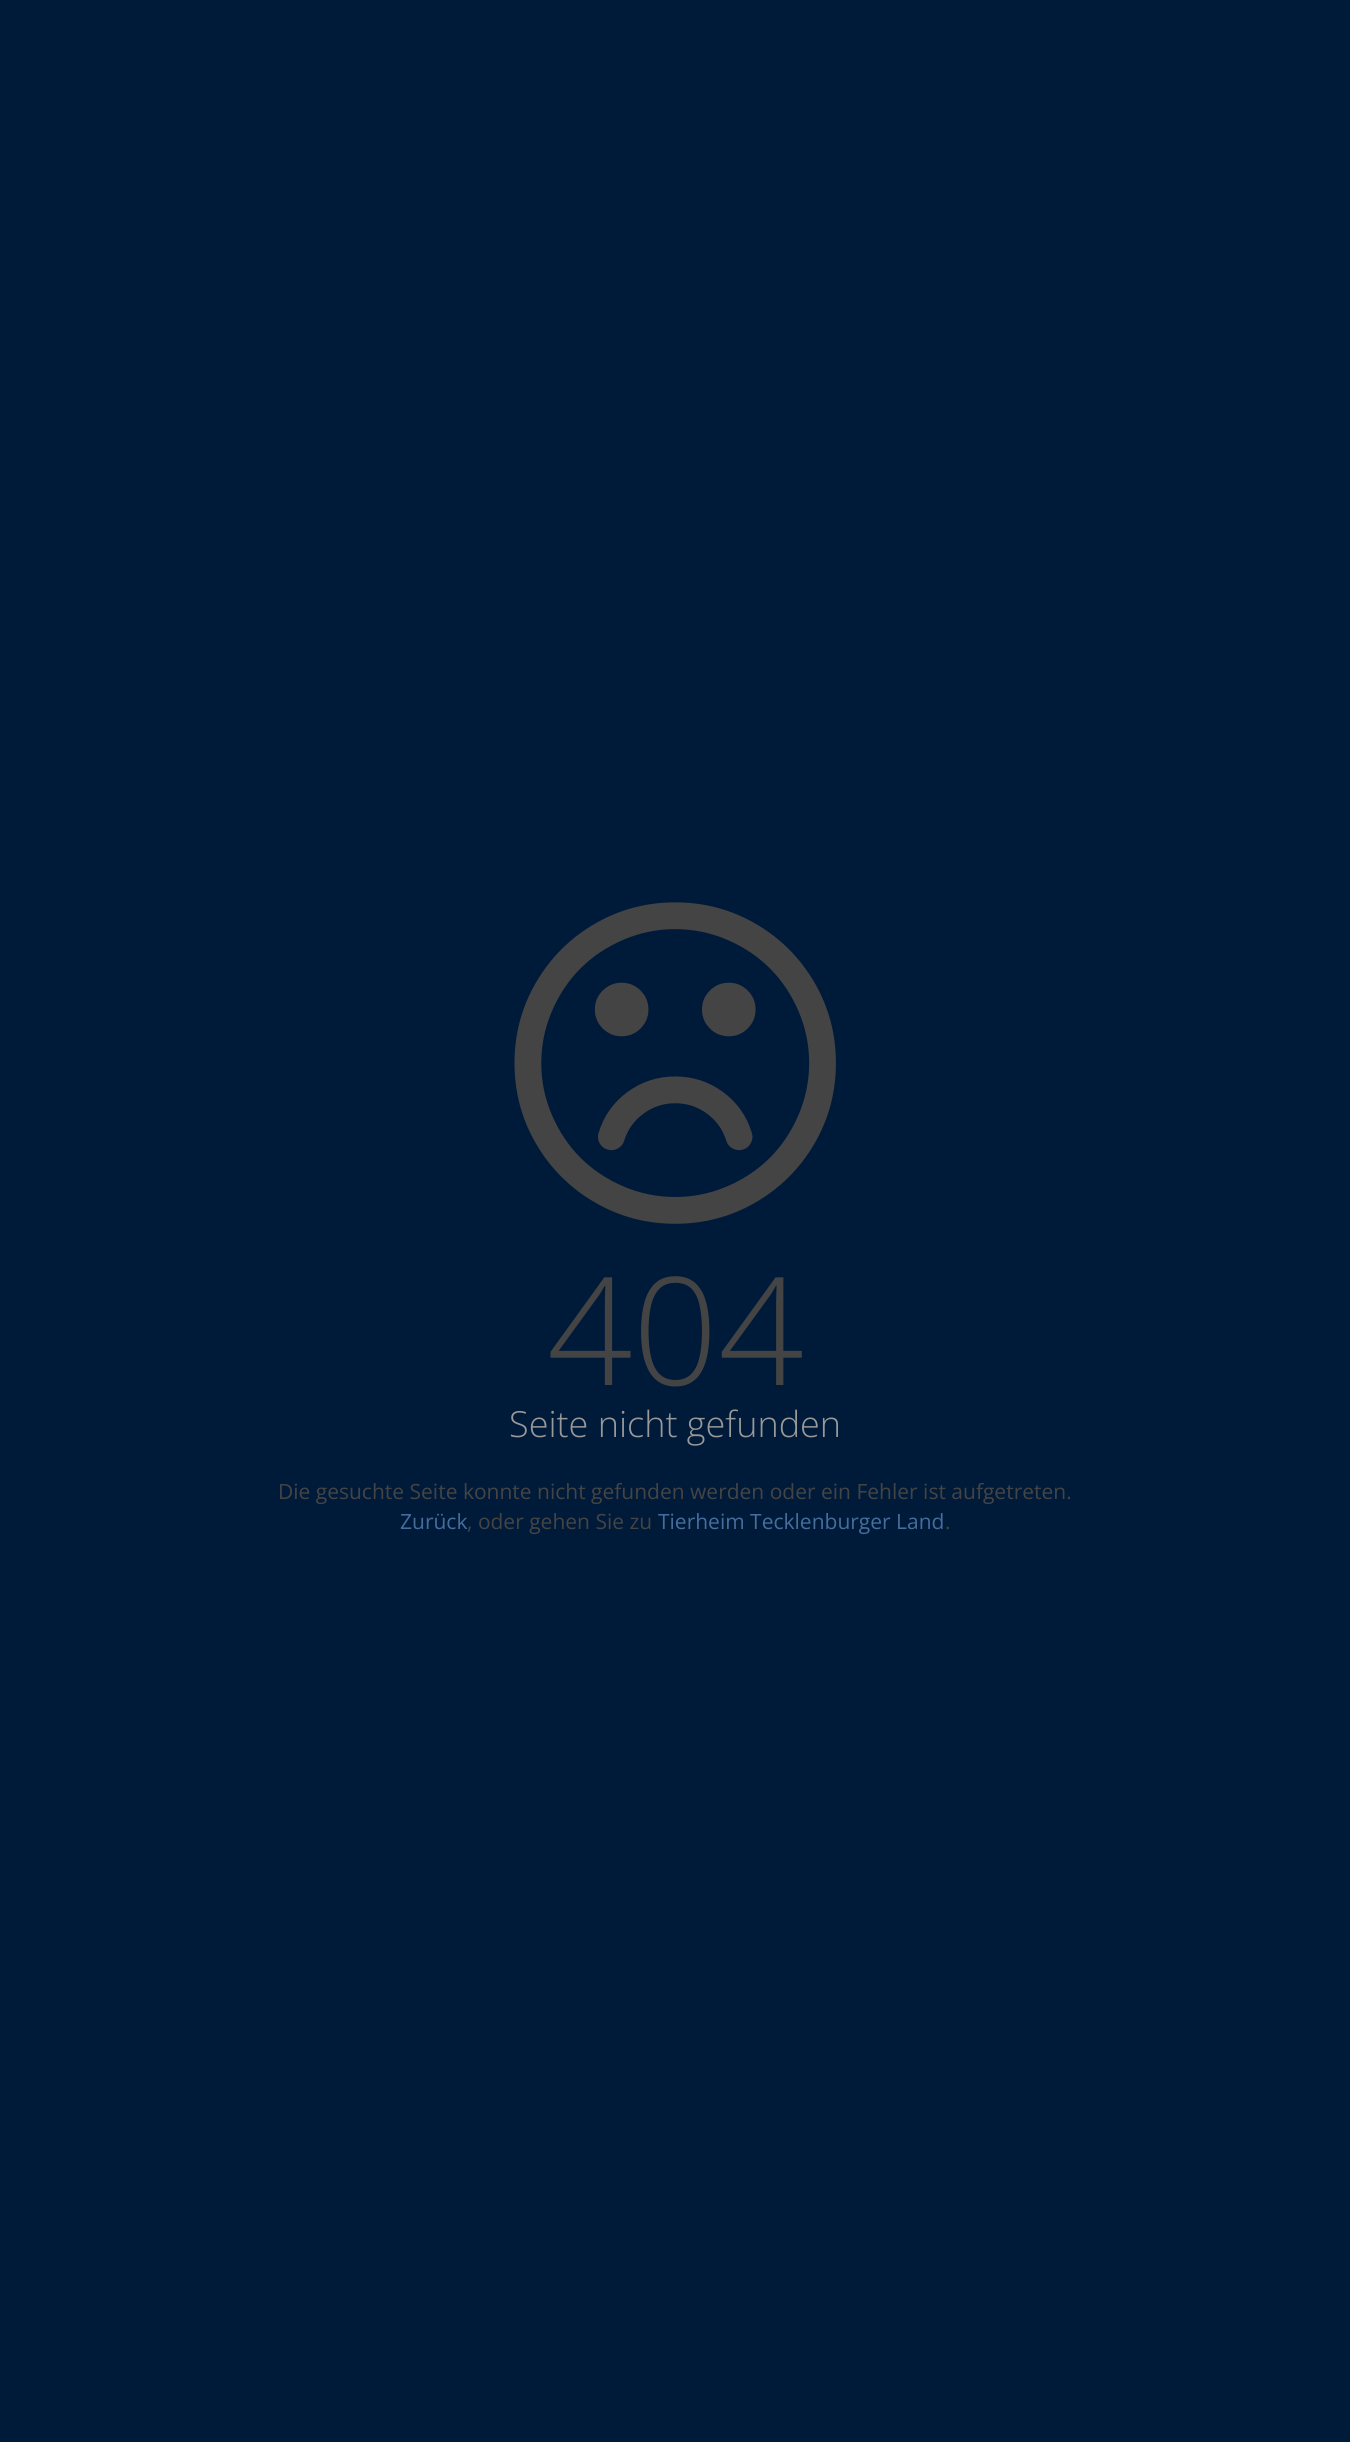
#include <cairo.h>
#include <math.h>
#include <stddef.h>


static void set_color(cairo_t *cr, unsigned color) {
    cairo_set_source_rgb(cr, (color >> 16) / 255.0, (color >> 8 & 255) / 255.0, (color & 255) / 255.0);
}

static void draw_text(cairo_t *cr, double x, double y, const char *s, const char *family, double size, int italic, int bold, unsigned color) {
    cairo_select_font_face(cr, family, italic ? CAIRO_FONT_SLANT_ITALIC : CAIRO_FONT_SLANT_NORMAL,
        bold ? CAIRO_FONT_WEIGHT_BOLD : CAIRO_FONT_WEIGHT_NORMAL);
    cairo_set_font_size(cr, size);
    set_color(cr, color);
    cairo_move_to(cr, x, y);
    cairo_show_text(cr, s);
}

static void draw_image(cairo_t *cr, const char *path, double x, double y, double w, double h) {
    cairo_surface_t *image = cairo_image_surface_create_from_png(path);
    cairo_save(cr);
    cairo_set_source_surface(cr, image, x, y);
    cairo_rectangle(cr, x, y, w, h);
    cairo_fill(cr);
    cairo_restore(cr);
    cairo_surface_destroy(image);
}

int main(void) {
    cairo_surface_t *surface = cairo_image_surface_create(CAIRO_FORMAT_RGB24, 1350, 2442);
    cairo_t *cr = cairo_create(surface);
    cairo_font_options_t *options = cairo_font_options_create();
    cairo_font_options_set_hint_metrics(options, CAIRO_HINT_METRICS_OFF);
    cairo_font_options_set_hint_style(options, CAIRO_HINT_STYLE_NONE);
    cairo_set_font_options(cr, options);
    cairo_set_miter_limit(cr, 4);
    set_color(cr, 0x001A39);
    cairo_paint(cr);
    draw_image(cr, "assets/img1.png", 514, 902, 322, 322);
    draw_text(cr, 547, 1385, "404", "Open Sans Light", 150, 0, 0, 0x444444);
    draw_text(cr, 509, 1437, "Seite nicht gefunden", "Open Sans Light", 36, 0, 0, 0x999999);
    draw_text(cr, 278, 1499, "Die gesuchte Seite konnte nicht gefunden werden oder ein Fehler ist aufgetreten.", "Open Sans", 21, 0, 0, 0x444444);
    draw_text(cr, 400, 1529, "Zurück", "Open Sans", 21, 0, 0, 0x466D9C);
    draw_text(cr, 467, 1529, ", oder gehen Sie zu", "Open Sans", 21, 0, 0, 0x444444);
    draw_text(cr, 658, 1529, "Tierheim Tecklenburger Land", "Open Sans", 21, 0, 0, 0x466D9C);
    draw_text(cr, 945, 1529, ".", "Open Sans", 21, 0, 0, 0x444444);
    cairo_surface_write_to_png(surface, "output.png");
    cairo_font_options_destroy(options);
    cairo_destroy(cr);
    cairo_surface_destroy(surface);
    return 0;
}
